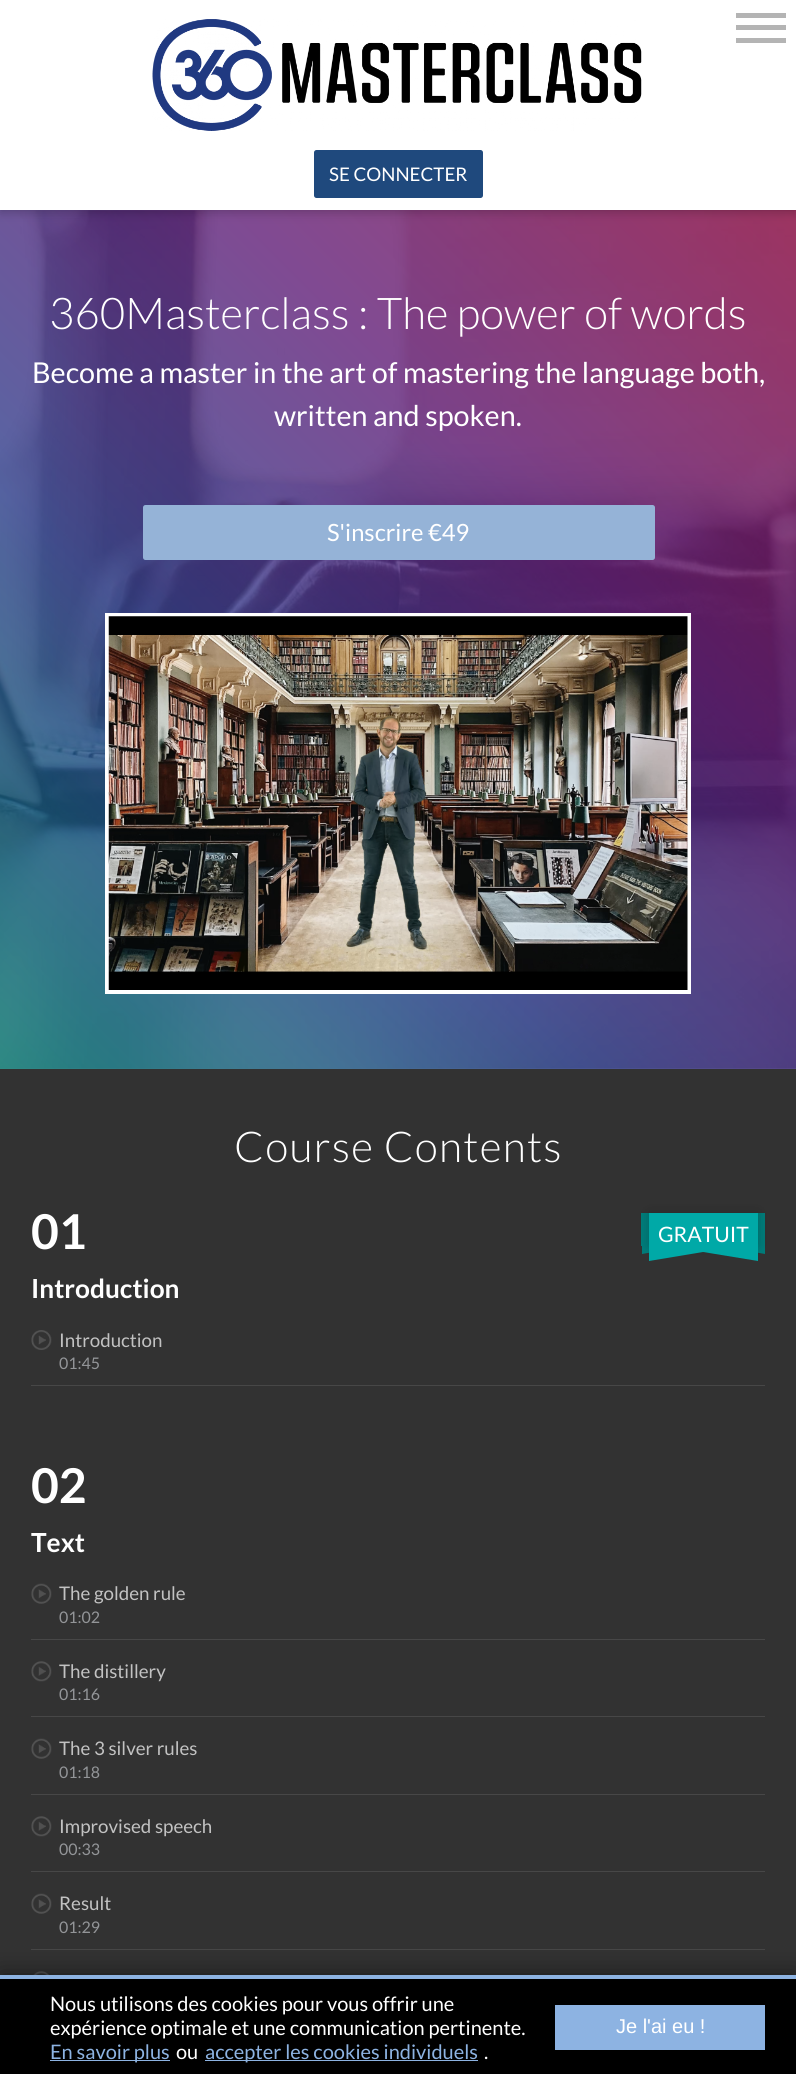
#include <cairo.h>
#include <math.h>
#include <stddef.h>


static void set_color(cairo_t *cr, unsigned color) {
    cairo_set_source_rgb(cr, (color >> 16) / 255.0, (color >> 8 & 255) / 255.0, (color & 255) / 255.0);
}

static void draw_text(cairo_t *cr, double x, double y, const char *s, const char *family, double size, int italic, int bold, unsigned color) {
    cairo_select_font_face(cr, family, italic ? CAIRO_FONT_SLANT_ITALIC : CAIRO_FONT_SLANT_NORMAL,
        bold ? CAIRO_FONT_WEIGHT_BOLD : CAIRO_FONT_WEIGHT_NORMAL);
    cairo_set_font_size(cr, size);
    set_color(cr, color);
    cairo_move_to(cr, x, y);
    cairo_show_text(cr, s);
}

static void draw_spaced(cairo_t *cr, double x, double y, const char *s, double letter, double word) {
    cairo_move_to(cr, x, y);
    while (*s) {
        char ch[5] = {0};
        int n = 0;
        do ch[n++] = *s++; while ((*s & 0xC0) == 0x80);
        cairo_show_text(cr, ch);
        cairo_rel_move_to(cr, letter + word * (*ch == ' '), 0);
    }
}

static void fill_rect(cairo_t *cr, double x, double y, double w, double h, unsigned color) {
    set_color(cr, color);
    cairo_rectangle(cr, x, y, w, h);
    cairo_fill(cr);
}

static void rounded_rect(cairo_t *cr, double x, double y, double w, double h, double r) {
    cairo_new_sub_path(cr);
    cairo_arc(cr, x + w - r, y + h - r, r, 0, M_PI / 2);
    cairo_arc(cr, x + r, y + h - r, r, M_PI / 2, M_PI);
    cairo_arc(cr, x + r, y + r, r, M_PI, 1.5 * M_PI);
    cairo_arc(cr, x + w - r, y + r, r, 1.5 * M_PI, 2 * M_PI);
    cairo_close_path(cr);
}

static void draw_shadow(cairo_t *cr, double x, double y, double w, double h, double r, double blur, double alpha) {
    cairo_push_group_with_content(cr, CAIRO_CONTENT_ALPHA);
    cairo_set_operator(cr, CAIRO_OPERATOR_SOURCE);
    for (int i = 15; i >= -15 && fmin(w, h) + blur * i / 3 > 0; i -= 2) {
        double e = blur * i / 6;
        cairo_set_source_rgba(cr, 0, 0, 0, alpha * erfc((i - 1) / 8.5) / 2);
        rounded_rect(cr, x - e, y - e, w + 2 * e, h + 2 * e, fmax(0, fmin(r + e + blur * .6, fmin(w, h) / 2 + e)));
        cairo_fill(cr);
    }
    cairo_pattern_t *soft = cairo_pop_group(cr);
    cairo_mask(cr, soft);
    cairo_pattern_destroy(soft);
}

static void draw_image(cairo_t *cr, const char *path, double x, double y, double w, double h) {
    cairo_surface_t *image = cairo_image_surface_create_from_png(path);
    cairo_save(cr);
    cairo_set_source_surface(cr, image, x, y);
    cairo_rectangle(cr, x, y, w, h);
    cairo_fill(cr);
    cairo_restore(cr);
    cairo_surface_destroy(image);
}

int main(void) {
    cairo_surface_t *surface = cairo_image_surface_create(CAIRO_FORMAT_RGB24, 796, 2074);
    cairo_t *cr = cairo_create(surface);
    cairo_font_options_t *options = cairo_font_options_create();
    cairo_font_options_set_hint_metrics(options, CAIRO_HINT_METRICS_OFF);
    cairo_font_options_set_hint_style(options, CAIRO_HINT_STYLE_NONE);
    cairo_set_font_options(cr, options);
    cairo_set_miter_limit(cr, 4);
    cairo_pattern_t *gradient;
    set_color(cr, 0xFFFFFF);
    cairo_paint(cr);
    draw_image(cr, "assets/img2.png", 0, 210, 796, 859);
    gradient = cairo_pattern_create_linear(-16, 1053, 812, 226);
    cairo_pattern_add_color_stop_rgba(gradient, 0, 0, 0.443, 0.412, 0.8);
    cairo_pattern_add_color_stop_rgba(gradient, 0.35, 0.176, 0.243, 0.549, 0.8);
    cairo_pattern_add_color_stop_rgba(gradient, 0.66, 0.376, 0.114, 0.467, 0.8);
    cairo_pattern_add_color_stop_rgba(gradient, 1, 0.553, 0.071, 0.298, 0.8);
    cairo_set_source(cr, gradient);
    cairo_pattern_destroy(gradient);
    cairo_rectangle(cr, 0, 210, 796, 859);
    cairo_fill(cr);
    set_color(cr, 0x000000);
    draw_shadow(cr, 0, 3, 796, 210, 0, 5, 0.2);
    fill_rect(cr, 0, 0, 796, 210, 0xFFFFFF);
    draw_image(cr, "assets/img1.png", 152, 19, 490, 112);
    fill_rect(cr, 736, 38, 50, 5, 0xB4B4B4);
    fill_rect(cr, 736, 13, 50, 5, 0xB4B4B4);
    fill_rect(cr, 736, 25, 50, 5, 0xB4B4B4);
    set_color(cr, 0x1F497D);
    rounded_rect(cr, 314, 150, 169, 48, 2.5);
    cairo_fill(cr);
    draw_text(cr, 329, 181, "SE CONNECTER", "Lato", 18.75, 0, 0, 0xFFFFFF);
    draw_text(cr, 49, 329, "360Masterclass : The power of words", "Lato Light", 43.75, 0, 0, 0xFFFFFF);
    draw_text(cr, 32, 383, "Become a master in the art of mastering the language both,", "Lato", 28.75, 0, 0, 0xFFFFFF);
    draw_text(cr, 274, 426, "written and spoken.", "Lato", 28.75, 0, 0, 0xFFFFFF);
    set_color(cr, 0x95B3D7);
    rounded_rect(cr, 143, 505, 512, 55, 2.5);
    cairo_fill(cr);
    draw_text(cr, 327, 541, "S'inscrire €49", "Lato", 23.75, 0, 0, 0xFFFFFF);
    cairo_rectangle(cr, 107, 615, 582, 377);
    cairo_set_line_width(cr, 4);
    cairo_stroke(cr);
    draw_image(cr, "assets/img3.png", 108, 616, 580, 374);
    fill_rect(cr, 0, 1069, 796, 906, 0x323232);
    cairo_select_font_face(cr, "Lato Light", CAIRO_FONT_SLANT_NORMAL, CAIRO_FONT_WEIGHT_NORMAL);
    cairo_set_font_size(cr, 42.5);
    set_color(cr, 0xFFFFFF);
    draw_spaced(cr, 234, 1162, "Course Contents", 1.25, 0);
    draw_text(cr, 31, 1249, "01", "Lato", 48, 0, 1, 0xFFFFFF);
    fill_rect(cr, 641, 1213, 124, 33, 0x007D7B);
    cairo_new_path(cr);
    cairo_move_to(cr, 642, 1227);
    cairo_line_to(cr, 703, 1216);
    cairo_line_to(cr, 703, 1243);
    cairo_line_to(cr, 642, 1254);
    cairo_close_path(cr);
    cairo_fill(cr);
    cairo_new_path(cr);
    cairo_move_to(cr, 703, 1216);
    cairo_line_to(cr, 765, 1227);
    cairo_line_to(cr, 765, 1254);
    cairo_line_to(cr, 703, 1243);
    cairo_close_path(cr);
    cairo_fill(cr);
    set_color(cr, 0x000000);
    draw_shadow(cr, 649, 1213, 109, 33, 0, 6, 0.2);
    fill_rect(cr, 649, 1213, 109, 15, 0x00A9A7);
    cairo_new_path(cr);
    cairo_move_to(cr, 649, 1228);
    cairo_line_to(cr, 703, 1218);
    cairo_line_to(cr, 703, 1252);
    cairo_line_to(cr, 649, 1261);
    cairo_close_path(cr);
    cairo_fill(cr);
    cairo_new_path(cr);
    cairo_move_to(cr, 703, 1218);
    cairo_line_to(cr, 758, 1228);
    cairo_line_to(cr, 758, 1261);
    cairo_line_to(cr, 703, 1252);
    cairo_close_path(cr);
    cairo_fill(cr);
    draw_text(cr, 658, 1242, "GRATUIT", "Lato", 21.25, 0, 0, 0xFFFFFF);
    draw_text(cr, 31, 1298, "Introduction", "Lato", 26.25, 0, 1, 0xFFFFFF);
    fill_rect(cr, 31, 1385, 734, 1, 0x474747);
    draw_image(cr, "assets/img4.png", 31, 1330, 21, 20);
    draw_text(cr, 59, 1347, "Introduction", "Lato", 18.75, 0, 0, 0xC2C2C2);
    draw_text(cr, 59, 1369, "01:45", "Lato", 16, 0, 0, 0x939598);
    draw_text(cr, 31, 1503, "02", "Lato", 48, 0, 1, 0xFFFFFF);
    draw_text(cr, 31, 1552, "Text", "Lato", 26.25, 0, 1, 0xFFFFFF);
    fill_rect(cr, 31, 1639, 734, 1, 0x474747);
    draw_image(cr, "assets/img5.png", 31, 1583, 21, 21);
    draw_text(cr, 59, 1600, "The golden rule", "Lato", 18.75, 0, 0, 0xC2C2C2);
    draw_text(cr, 59, 1623, "01:02", "Lato", 16, 0, 0, 0x939598);
    fill_rect(cr, 31, 1716, 734, 1, 0x474747);
    draw_image(cr, "assets/img6.png", 31, 1661, 21, 21);
    draw_text(cr, 59, 1678, "The distillery", "Lato", 18.75, 0, 0, 0xC2C2C2);
    draw_text(cr, 59, 1700, "01:16", "Lato", 16, 0, 0, 0x939598);
    fill_rect(cr, 31, 1794, 734, 1, 0x474747);
    draw_image(cr, "assets/img5.png", 31, 1738, 21, 21);
    draw_text(cr, 59, 1755, "The 3 silver rules", "Lato", 18.75, 0, 0, 0xC2C2C2);
    draw_text(cr, 59, 1778, "01:18", "Lato", 16, 0, 0, 0x939598);
    fill_rect(cr, 31, 1871, 734, 1, 0x474747);
    draw_image(cr, "assets/img6.png", 31, 1816, 21, 21);
    draw_text(cr, 59, 1833, "Improvised speech", "Lato", 18.75, 0, 0, 0xC2C2C2);
    draw_text(cr, 59, 1855, "00:33", "Lato", 16, 0, 0, 0x939598);
    fill_rect(cr, 31, 1949, 734, 1, 0x474747);
    draw_image(cr, "assets/img5.png", 31, 1893, 21, 21);
    draw_text(cr, 59, 1910, "Result", "Lato", 18.75, 0, 0, 0xC2C2C2);
    draw_text(cr, 59, 1933, "01:29", "Lato", 16, 0, 0, 0x939598);
    draw_image(cr, "assets/img7.png", 33, 1971, 16, 4);
    set_color(cr, 0x000000);
    draw_shadow(cr, 0, 1975, 796, 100, 0, 12.5, 0.5);
    fill_rect(cr, 0, 1979, 796, 95, 0x000000);
    fill_rect(cr, 0, 1975, 796, 4, 0x8DB3E2);
    draw_text(cr, 50, 2011, "Nous utilisons des cookies pour vous offrir une", "Lato", 20, 0, 0, 0xFFFFFF);
    draw_text(cr, 50, 2035, "expérience optimale et une communication pertinente.", "Lato", 20, 0, 0, 0xFFFFFF);
    fill_rect(cr, 50, 2060, 120, 1, 0x8DB3E2);
    draw_text(cr, 50, 2059, "En savoir plus", "Lato", 20, 0, 0, 0x8DB3E2);
    draw_text(cr, 176, 2059, "ou", "Lato", 20, 0, 0, 0xFFFFFF);
    fill_rect(cr, 205, 2060, 273, 1, 0x8DB3E2);
    draw_text(cr, 205, 2059, "accepter les cookies individuels", "Lato", 20, 0, 0, 0x8DB3E2);
    draw_text(cr, 484, 2059, ".", "Lato", 20, 0, 0, 0xFFFFFF);
    fill_rect(cr, 555, 2005, 210, 45, 0x8DB3E2);
    draw_text(cr, 616, 2033, "Je l'ai eu !", "Liberation Sans", 20, 0, 0, 0xFFFFFF);
    cairo_surface_write_to_png(surface, "output.png");
    cairo_font_options_destroy(options);
    cairo_destroy(cr);
    cairo_surface_destroy(surface);
    return 0;
}
